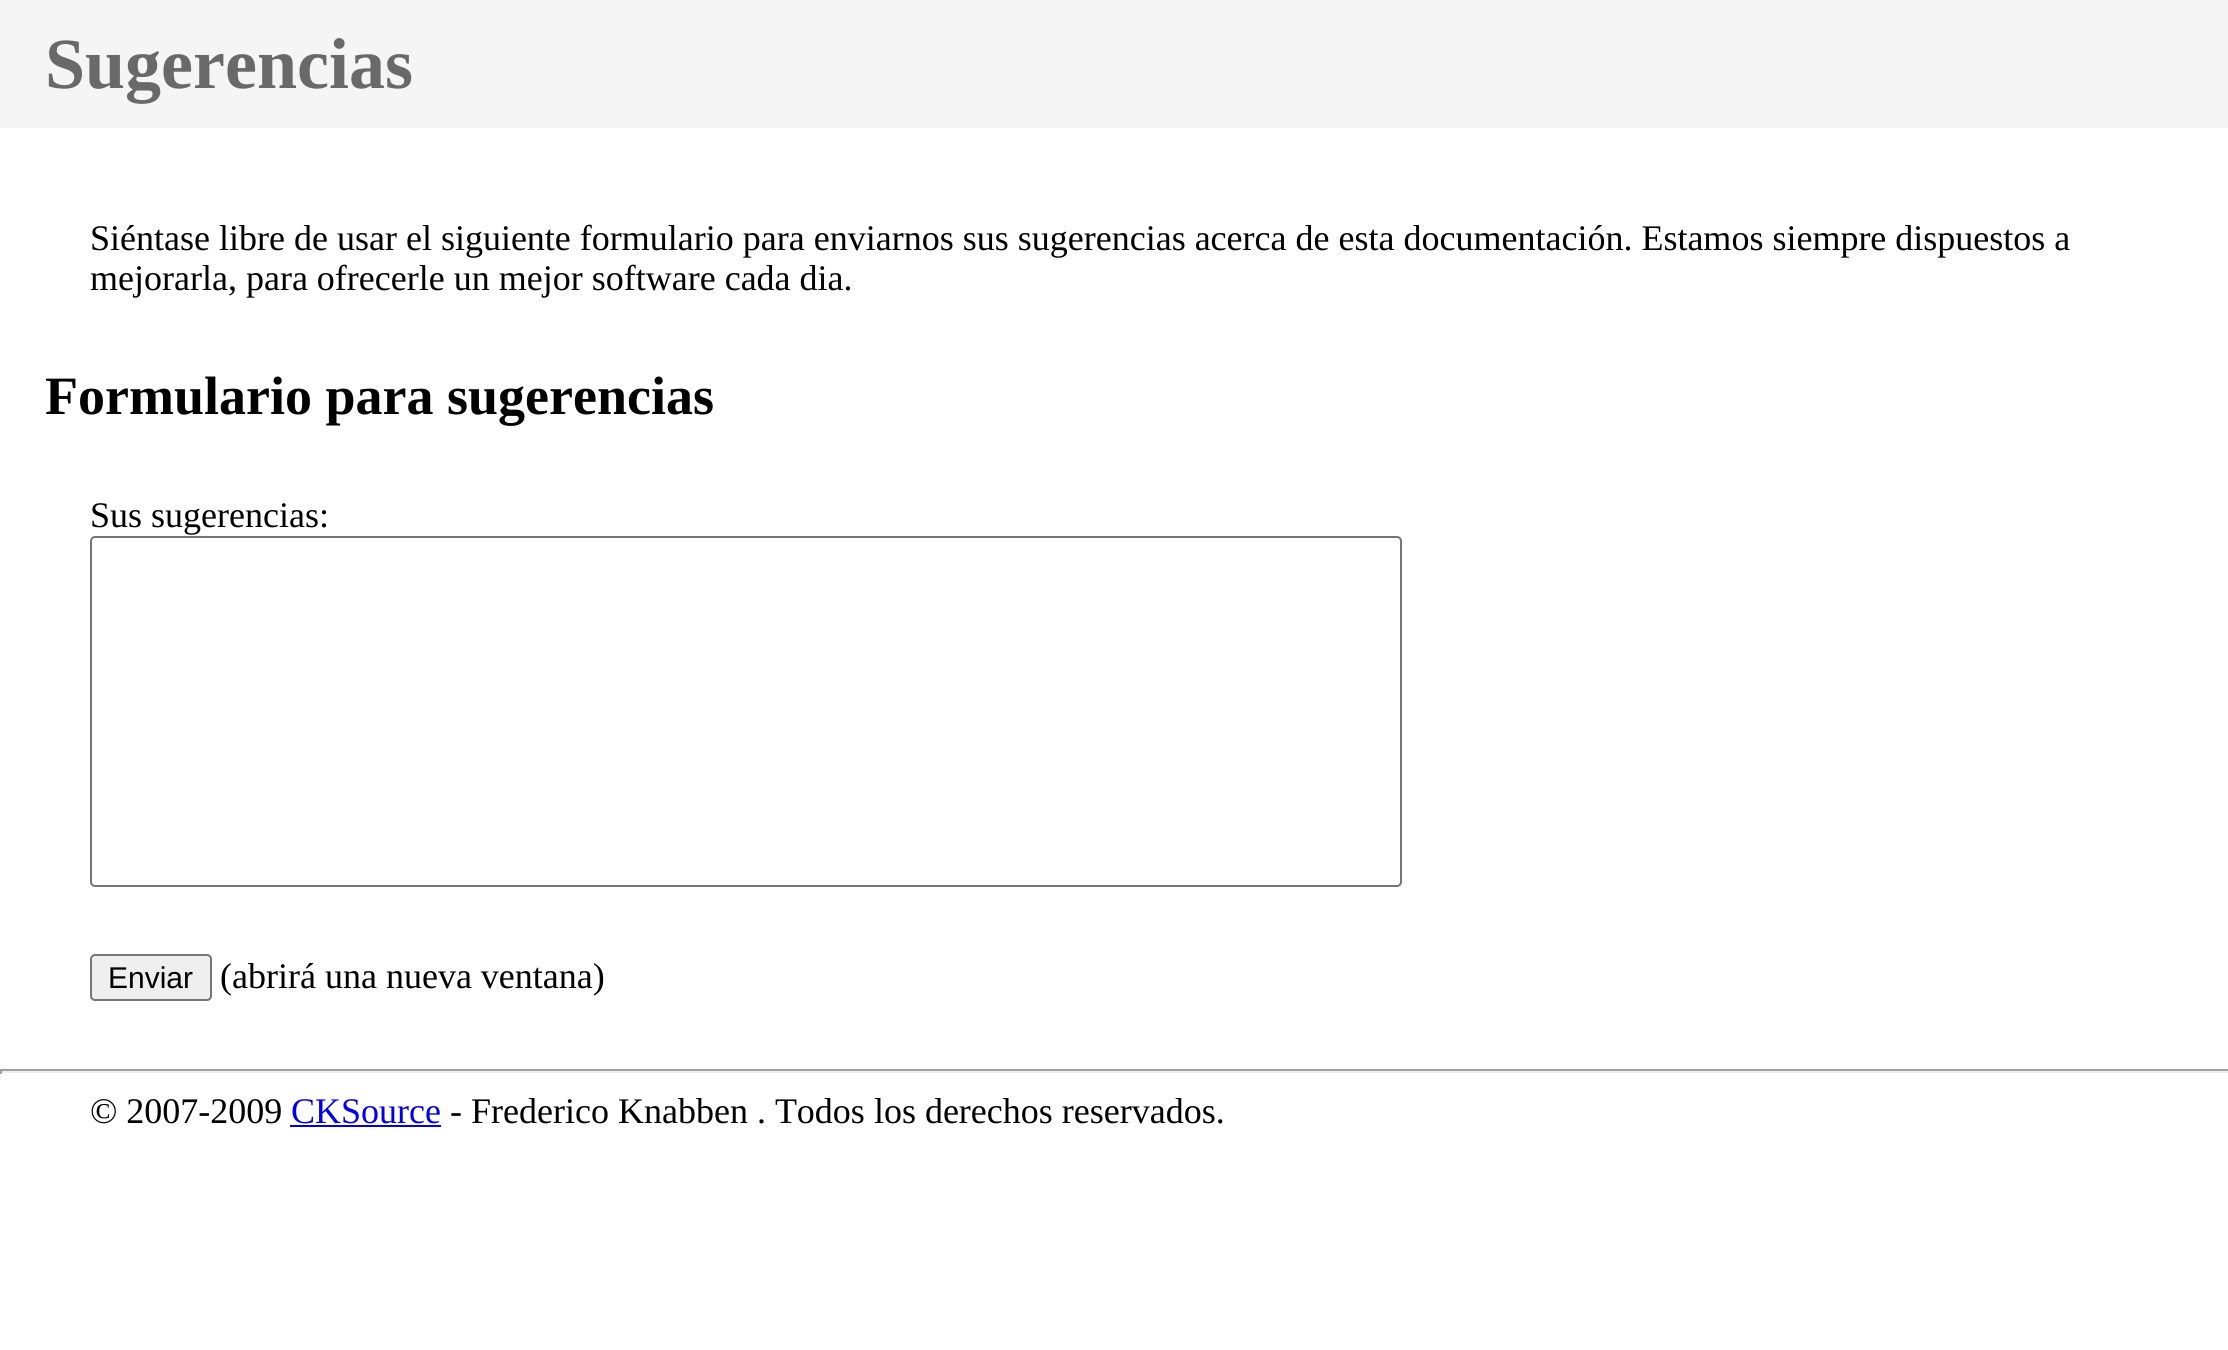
#include <cairo.h>
#include <math.h>
#include <stddef.h>


static void set_color(cairo_t *cr, unsigned color) {
    cairo_set_source_rgb(cr, (color >> 16) / 255.0, (color >> 8 & 255) / 255.0, (color & 255) / 255.0);
}

static void draw_text(cairo_t *cr, double x, double y, const char *s, const char *family, double size, int italic, int bold, unsigned color) {
    cairo_select_font_face(cr, family, italic ? CAIRO_FONT_SLANT_ITALIC : CAIRO_FONT_SLANT_NORMAL,
        bold ? CAIRO_FONT_WEIGHT_BOLD : CAIRO_FONT_WEIGHT_NORMAL);
    cairo_set_font_size(cr, size);
    set_color(cr, color);
    cairo_move_to(cr, x, y);
    cairo_show_text(cr, s);
}

static void fill_rect(cairo_t *cr, double x, double y, double w, double h, unsigned color) {
    set_color(cr, color);
    cairo_rectangle(cr, x, y, w, h);
    cairo_fill(cr);
}

static void rounded_rect(cairo_t *cr, double x, double y, double w, double h, double r) {
    cairo_new_sub_path(cr);
    cairo_arc(cr, x + w - r, y + h - r, r, 0, M_PI / 2);
    cairo_arc(cr, x + r, y + h - r, r, M_PI / 2, M_PI);
    cairo_arc(cr, x + r, y + r, r, M_PI, 1.5 * M_PI);
    cairo_arc(cr, x + w - r, y + r, r, 1.5 * M_PI, 2 * M_PI);
    cairo_close_path(cr);
}

int main(void) {
    cairo_surface_t *surface = cairo_image_surface_create(CAIRO_FORMAT_RGB24, 2228, 1350);
    cairo_t *cr = cairo_create(surface);
    cairo_font_options_t *options = cairo_font_options_create();
    cairo_font_options_set_hint_metrics(options, CAIRO_HINT_METRICS_OFF);
    cairo_font_options_set_hint_style(options, CAIRO_HINT_STYLE_NONE);
    cairo_set_font_options(cr, options);
    cairo_set_miter_limit(cr, 4);
    set_color(cr, 0xFFFFFF);
    cairo_paint(cr);
    fill_rect(cr, 0, 0, 2228, 128, 0xF5F5F5);
    draw_text(cr, 45, 88, "Sugerencias", "Liberation Serif", 72, 0, 1, 0x696969);
    draw_text(cr, 90, 250, "Siéntase libre de usar el siguiente formulario para enviarnos sus sugerencias acerca de esta documentación. Estamos siempre dispuestos a", "Liberation Serif", 36, 0, 0, 0x000000);
    draw_text(cr, 90, 290, "mejorarla, para ofrecerle un mejor software cada dia.", "Liberation Serif", 36, 0, 0, 0x000000);
    draw_text(cr, 45, 414, "Formulario para sugerencias", "Liberation Serif", 54, 0, 1, 0x000000);
    draw_text(cr, 90, 527, "Sus sugerencias:", "Liberation Serif", 36, 0, 0, 0x000000);
    rounded_rect(cr, 91, 537, 1310, 349, 4);
    set_color(cr, 0x767676);
    cairo_stroke(cr);
    set_color(cr, 0xEFEFEF);
    rounded_rect(cr, 91, 955, 120, 45, 4);
    cairo_fill_preserve(cr);
    set_color(cr, 0x767676);
    cairo_stroke(cr);
    draw_text(cr, 108, 988, "Enviar", "Liberation Sans", 30, 0, 0, 0x000000);
    draw_text(cr, 220, 988, "(abrirá una nueva ventana)", "Liberation Serif", 36, 0, 0, 0x000000);
    fill_rect(cr, 0, 1069, 2228, 2, 0x9F9F9F);
    fill_rect(cr, 0, 1071, 2228, 2, 0xEEEEEE);
    fill_rect(cr, 0, 1069, 2, 5, 0x9F9F9F);
    draw_text(cr, 90, 1123, "© 2007-2009", "Liberation Serif", 36, 0, 0, 0x000000);
    draw_text(cr, 291, 1123, "CKSource", "Liberation Serif", 36, 0, 0, 0x0000EE);
    fill_rect(cr, 290, 1125, 151, 2, 0x0000EE);
    draw_text(cr, 450, 1123, "- Frederico Knabben . Todos los derechos reservados.", "Liberation Serif", 36, 0, 0, 0x000000);
    cairo_surface_write_to_png(surface, "output.png");
    cairo_font_options_destroy(options);
    cairo_destroy(cr);
    cairo_surface_destroy(surface);
    return 0;
}
